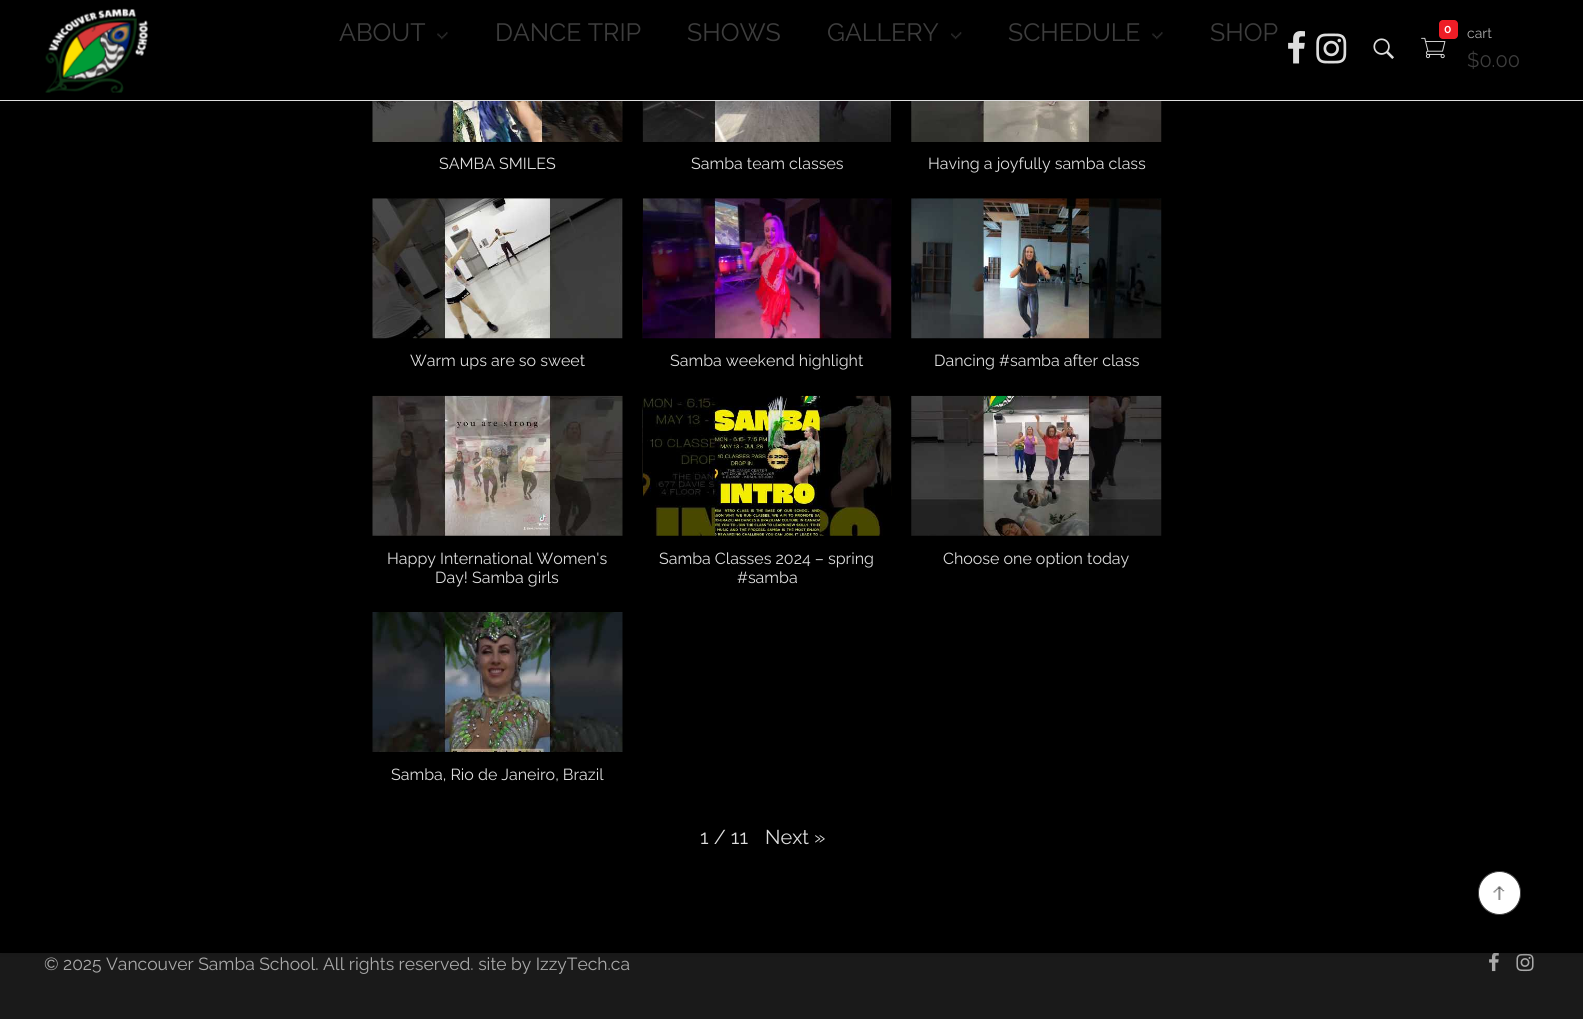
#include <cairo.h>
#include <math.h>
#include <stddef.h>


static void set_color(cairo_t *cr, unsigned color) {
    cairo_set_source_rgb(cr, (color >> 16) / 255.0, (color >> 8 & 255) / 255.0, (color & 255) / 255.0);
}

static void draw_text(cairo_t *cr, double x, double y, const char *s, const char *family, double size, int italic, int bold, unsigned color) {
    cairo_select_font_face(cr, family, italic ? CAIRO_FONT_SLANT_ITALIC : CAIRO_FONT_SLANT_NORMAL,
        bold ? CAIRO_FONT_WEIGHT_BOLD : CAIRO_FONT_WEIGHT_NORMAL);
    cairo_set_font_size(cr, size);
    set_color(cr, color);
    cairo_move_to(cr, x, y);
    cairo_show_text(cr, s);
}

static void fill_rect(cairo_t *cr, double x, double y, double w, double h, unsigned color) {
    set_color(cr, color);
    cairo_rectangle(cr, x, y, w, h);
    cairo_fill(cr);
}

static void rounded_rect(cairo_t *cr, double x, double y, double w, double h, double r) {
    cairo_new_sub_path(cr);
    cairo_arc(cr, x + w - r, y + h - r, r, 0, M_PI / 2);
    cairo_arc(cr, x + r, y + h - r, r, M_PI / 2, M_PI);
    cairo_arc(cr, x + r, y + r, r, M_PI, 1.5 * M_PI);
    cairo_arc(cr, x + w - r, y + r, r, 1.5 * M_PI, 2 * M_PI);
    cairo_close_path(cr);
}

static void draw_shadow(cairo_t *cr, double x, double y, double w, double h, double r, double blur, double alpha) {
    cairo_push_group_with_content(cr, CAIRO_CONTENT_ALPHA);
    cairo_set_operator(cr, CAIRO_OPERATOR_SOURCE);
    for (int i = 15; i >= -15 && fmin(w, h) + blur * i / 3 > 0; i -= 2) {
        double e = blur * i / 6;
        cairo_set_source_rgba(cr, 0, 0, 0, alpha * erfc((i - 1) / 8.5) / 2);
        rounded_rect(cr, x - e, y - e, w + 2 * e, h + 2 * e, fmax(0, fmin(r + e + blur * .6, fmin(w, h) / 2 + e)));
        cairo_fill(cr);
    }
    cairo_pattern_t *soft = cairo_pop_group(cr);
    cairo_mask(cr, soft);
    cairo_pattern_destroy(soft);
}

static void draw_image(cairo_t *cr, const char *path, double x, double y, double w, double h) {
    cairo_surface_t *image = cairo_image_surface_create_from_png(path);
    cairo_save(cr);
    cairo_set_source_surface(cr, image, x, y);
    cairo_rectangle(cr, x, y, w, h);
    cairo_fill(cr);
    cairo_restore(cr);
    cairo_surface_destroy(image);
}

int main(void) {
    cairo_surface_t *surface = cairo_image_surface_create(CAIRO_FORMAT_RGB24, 1583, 1019);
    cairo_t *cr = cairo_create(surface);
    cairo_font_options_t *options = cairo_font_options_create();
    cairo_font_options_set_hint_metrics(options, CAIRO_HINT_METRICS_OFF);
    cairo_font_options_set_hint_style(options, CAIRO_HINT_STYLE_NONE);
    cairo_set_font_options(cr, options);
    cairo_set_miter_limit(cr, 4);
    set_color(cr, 0x1A1A1A);
    cairo_paint(cr);
    draw_image(cr, "assets/img18.png", 1489, 953, 10, 19);
    draw_image(cr, "assets/img19.png", 1516, 953, 18, 19);
    set_color(cr, 0x0A0A0A);
    draw_shadow(cr, 0, -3, 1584, 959, 0, 1, 0.1);
    fill_rect(cr, 0, 101, 1583, 852, 0x000000);
    draw_image(cr, "assets/img8.png", 372, 101, 251, 41);
    draw_image(cr, "assets/img9.png", 642, 101, 250, 41);
    draw_image(cr, "assets/img10.png", 911, 101, 251, 41);
    cairo_set_source_rgba(cr, 0.133, 0.133, 0.133, 0.03);
    cairo_new_path(cr);
    cairo_move_to(cr, 0, 101);
    cairo_line_to(cr, 0, 106);
    cairo_line_to(cr, 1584, 106);
    cairo_line_to(cr, 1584, 5);
    cairo_line_to(cr, 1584, 101);
    cairo_close_path(cr);
    cairo_fill(cr);
    fill_rect(cr, 0, 0, 1583, 100, 0x000000);
    fill_rect(cr, 0, 100, 1583, 1, 0xDEDEDE);
    draw_image(cr, "assets/img1.png", 45, 8, 103, 85);
    draw_text(cr, 339, 41, "ABOUT", "Raleway", 25, 0, 0, 0x3D3D3D);
    draw_image(cr, "assets/img2.png", 437, 32, 11, 8);
    draw_text(cr, 495, 41, "DANCE TRIP", "Raleway", 25, 0, 0, 0x3D3D3D);
    draw_text(cr, 687, 41, "SHOWS", "Raleway", 25, 0, 0, 0x3D3D3D);
    draw_text(cr, 827, 41, "GALLERY", "Raleway", 25, 0, 0, 0x3D3D3D);
    draw_image(cr, "assets/img3.png", 951, 32, 11, 8);
    draw_text(cr, 1008, 41, "SCHEDULE", "Raleway", 25, 0, 0, 0x3D3D3D);
    draw_image(cr, "assets/img2.png", 1152, 32, 11, 8);
    draw_text(cr, 1210, 41, "SHOP", "Raleway", 25, 0, 0, 0x3D3D3D);
    draw_image(cr, "assets/img4.png", 1288, 31, 17, 33);
    draw_image(cr, "assets/img5.png", 1316, 33, 31, 31);
    draw_image(cr, "assets/img6.png", 1373, 38, 21, 21);
    draw_image(cr, "assets/img7.png", 1421, 37, 25, 22);
    set_color(cr, 0xEE1D26);
    rounded_rect(cr, 1439, 20, 19, 19, 4);
    cairo_fill(cr);
    draw_text(cr, 1444, 33, "0", "Raleway SemiBold", 12, 0, 0, 0xFFFFFF);
    draw_text(cr, 1467, 38, "cart", "Raleway", 14, 0, 0, 0xAAAAAA);
    draw_text(cr, 1467, 67, "$0.00", "Raleway", 20, 0, 0, 0x3D3D3D);
    draw_text(cr, 439, 169, "SAMBA SMILES", "Raleway", 16, 0, 0, 0xDDDDDD);
    draw_text(cr, 691, 169, "Samba team classes", "Raleway", 16, 0, 0, 0xDDDDDD);
    draw_text(cr, 928, 169, "Having a joyfully samba class", "Raleway", 16, 0, 0, 0xDDDDDD);
    draw_image(cr, "assets/img11.png", 372, 198, 251, 141);
    draw_text(cr, 410, 366, "Warm ups are so sweet", "Raleway", 16, 0, 0, 0xDDDDDD);
    draw_image(cr, "assets/img12.png", 642, 198, 250, 141);
    draw_text(cr, 670, 366, "Samba weekend highlight", "Raleway", 16, 0, 0, 0xDDDDDD);
    draw_image(cr, "assets/img13.png", 911, 198, 251, 141);
    draw_text(cr, 934, 366, "Dancing #samba after class", "Raleway", 16, 0, 0, 0xDDDDDD);
    draw_image(cr, "assets/img14.png", 372, 395, 251, 141);
    draw_text(cr, 387, 564, "Happy International Women's", "Raleway", 16, 0, 0, 0xDDDDDD);
    draw_text(cr, 435, 583, "Day! Samba girls", "Raleway", 16, 0, 0, 0xDDDDDD);
    draw_image(cr, "assets/img15.png", 642, 395, 250, 141);
    draw_text(cr, 659, 564, "Samba Classes 2024 – spring", "Raleway", 16, 0, 0, 0xDDDDDD);
    draw_text(cr, 737, 583, "#samba", "Raleway", 16, 0, 0, 0xDDDDDD);
    draw_image(cr, "assets/img16.png", 911, 395, 251, 141);
    draw_text(cr, 943, 564, "Choose one option today", "Raleway", 16, 0, 0, 0xDDDDDD);
    draw_image(cr, "assets/img17.png", 372, 612, 251, 140);
    draw_text(cr, 391, 780, "Samba, Rio de Janeiro, Brazil", "Raleway", 16, 0, 0, 0xDDDDDD);
    draw_text(cr, 700, 844, "1 / 11", "Raleway", 20, 0, 0, 0xDDDDDD);
    draw_text(cr, 765, 844, "Next »", "Raleway", 20, 0, 0, 0xDDDDDD);
    draw_text(cr, 44, 970, "© 2025 Vancouver Samba School. All rights reserved. site by IzzyTech.ca", "Raleway", 17.5, 0, 0, 0xAAAAAA);
    set_color(cr, 0xFFFFFF);
    rounded_rect(cr, 1478.5, 871.5, 42, 43, 21);
    cairo_fill_preserve(cr);
    set_color(cr, 0x3D3D3D);
    cairo_set_line_width(cr, 1);
    cairo_stroke(cr);
    draw_image(cr, "assets/img20.png", 1493, 886, 12, 14);
    cairo_surface_write_to_png(surface, "output.png");
    cairo_font_options_destroy(options);
    cairo_destroy(cr);
    cairo_surface_destroy(surface);
    return 0;
}
